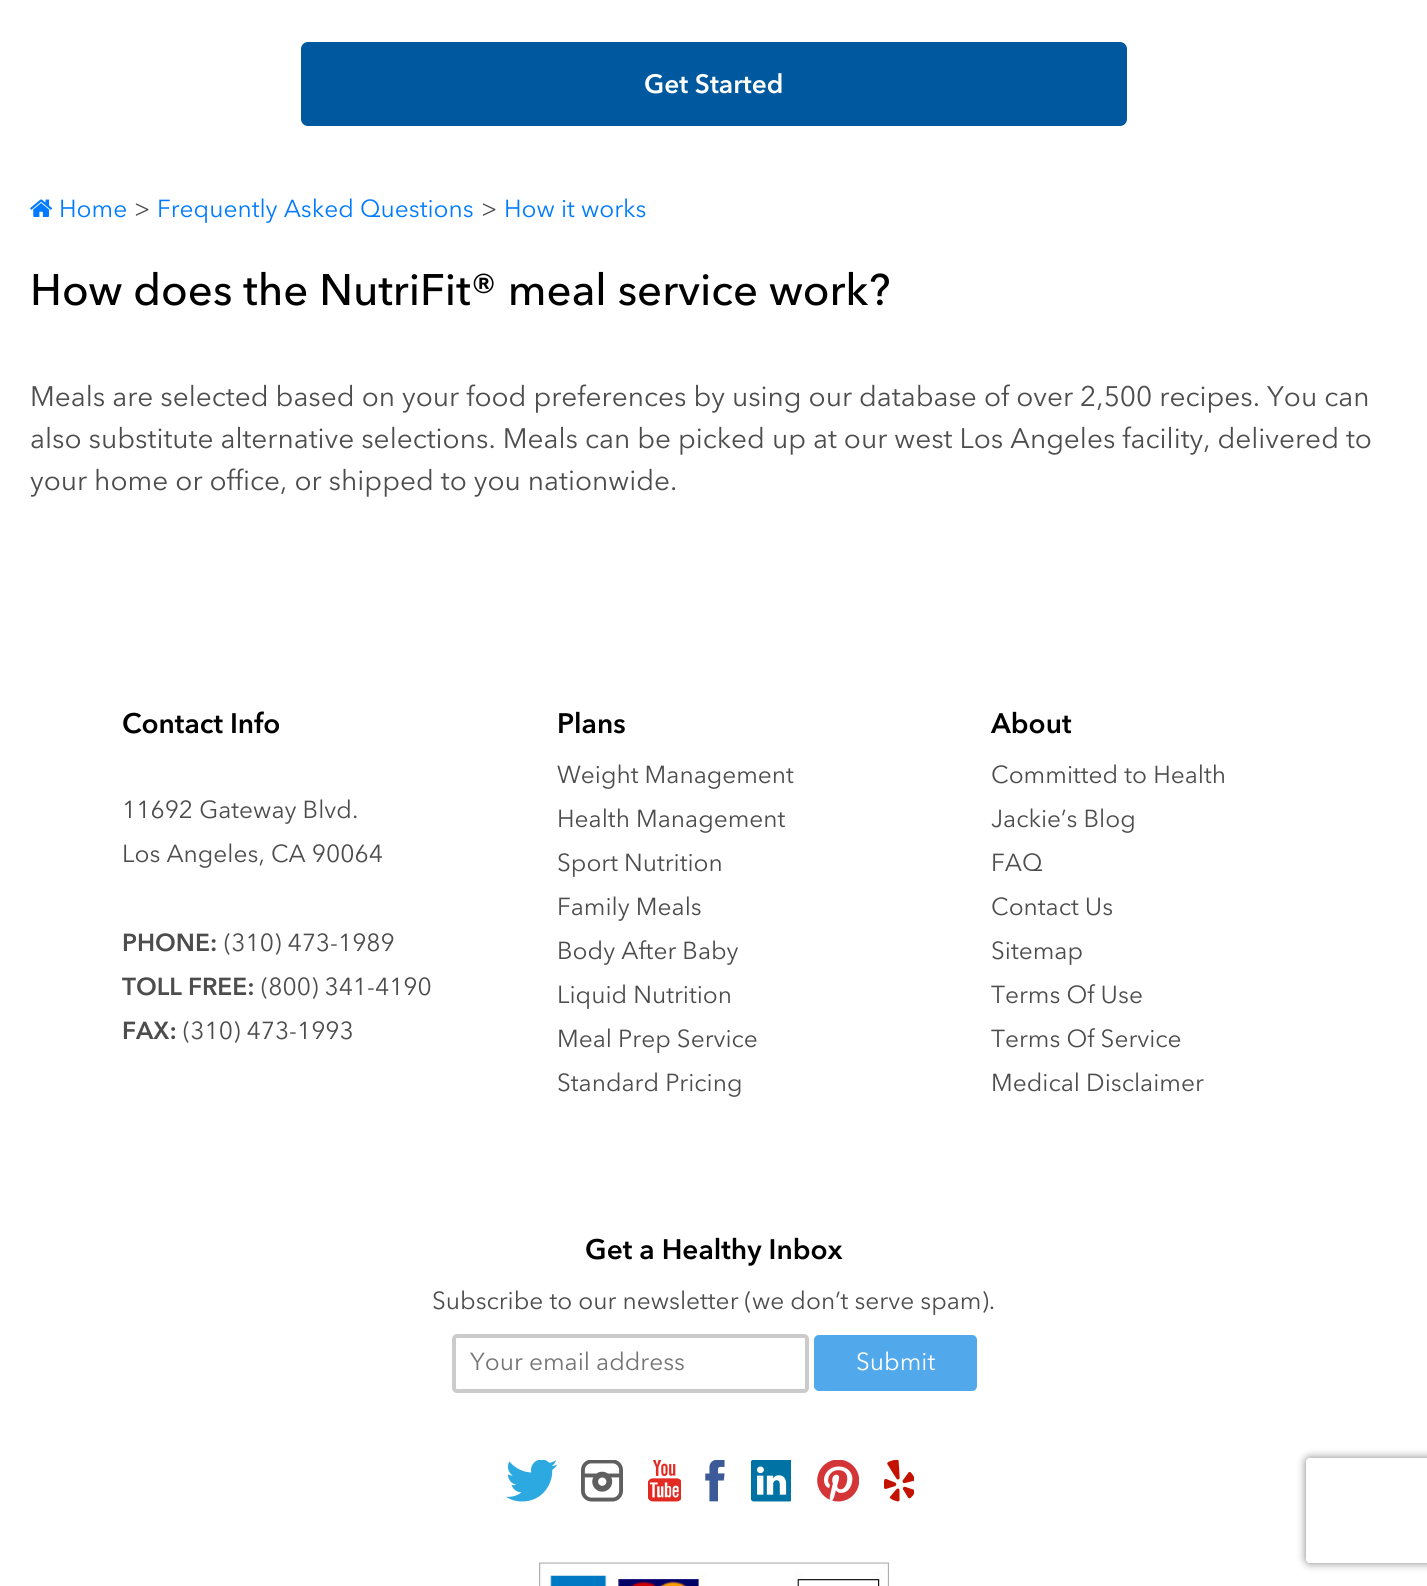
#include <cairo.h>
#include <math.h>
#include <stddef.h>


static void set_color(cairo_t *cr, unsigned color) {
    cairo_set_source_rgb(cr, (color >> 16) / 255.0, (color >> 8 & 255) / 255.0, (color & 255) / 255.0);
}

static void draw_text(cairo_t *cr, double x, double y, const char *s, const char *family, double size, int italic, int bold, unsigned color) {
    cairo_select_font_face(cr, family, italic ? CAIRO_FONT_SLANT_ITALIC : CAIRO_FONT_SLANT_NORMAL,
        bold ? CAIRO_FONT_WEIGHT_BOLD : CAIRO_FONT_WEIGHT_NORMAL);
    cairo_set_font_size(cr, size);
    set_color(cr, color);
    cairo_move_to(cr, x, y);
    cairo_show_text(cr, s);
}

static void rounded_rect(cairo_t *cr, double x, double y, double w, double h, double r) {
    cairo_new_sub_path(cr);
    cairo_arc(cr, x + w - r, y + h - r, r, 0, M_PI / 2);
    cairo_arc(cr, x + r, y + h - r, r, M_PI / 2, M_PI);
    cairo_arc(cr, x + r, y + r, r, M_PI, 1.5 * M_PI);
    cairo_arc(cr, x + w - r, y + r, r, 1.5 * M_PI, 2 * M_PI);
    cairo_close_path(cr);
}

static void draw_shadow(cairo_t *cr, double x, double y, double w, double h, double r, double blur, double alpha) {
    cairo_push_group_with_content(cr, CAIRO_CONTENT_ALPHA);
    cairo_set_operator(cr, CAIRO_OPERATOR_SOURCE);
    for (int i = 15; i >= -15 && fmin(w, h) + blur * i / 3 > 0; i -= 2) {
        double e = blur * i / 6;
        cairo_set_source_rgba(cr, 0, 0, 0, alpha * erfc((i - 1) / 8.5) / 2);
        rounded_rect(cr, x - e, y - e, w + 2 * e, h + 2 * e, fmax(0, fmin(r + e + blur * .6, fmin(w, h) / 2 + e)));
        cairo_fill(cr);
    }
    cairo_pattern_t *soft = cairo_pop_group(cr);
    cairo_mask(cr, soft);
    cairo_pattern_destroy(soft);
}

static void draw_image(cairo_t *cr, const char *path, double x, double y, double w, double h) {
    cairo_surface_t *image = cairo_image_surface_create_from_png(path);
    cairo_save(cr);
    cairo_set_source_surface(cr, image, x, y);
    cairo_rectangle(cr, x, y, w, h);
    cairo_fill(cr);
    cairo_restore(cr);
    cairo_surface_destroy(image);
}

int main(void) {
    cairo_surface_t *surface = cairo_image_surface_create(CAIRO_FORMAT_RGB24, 1427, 1586);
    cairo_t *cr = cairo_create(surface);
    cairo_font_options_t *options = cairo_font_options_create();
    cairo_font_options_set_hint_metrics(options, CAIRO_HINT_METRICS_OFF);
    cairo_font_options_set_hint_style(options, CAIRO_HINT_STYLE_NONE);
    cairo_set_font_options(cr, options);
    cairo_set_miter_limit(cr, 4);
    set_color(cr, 0xFFFFFF);
    cairo_paint(cr);
    set_color(cr, 0x00599E);
    rounded_rect(cr, 301, 42, 826, 84, 7);
    cairo_fill(cr);
    draw_text(cr, 644, 93, "Get Started", "Avenir Next SemiBold", 26.25, 0, 0, 0xFFFFFF);
    draw_image(cr, "assets/img1.png", 30, 199, 23, 18);
    draw_text(cr, 59, 217, "Home", "Avenir Next", 24.5, 0, 0, 0x007BFF);
    draw_text(cr, 134, 217, ">", "Avenir Next", 24.5, 0, 0, 0x4D4D4D);
    draw_text(cr, 157, 217, "Frequently Asked Questions", "Avenir Next", 24.5, 0, 0, 0x007BFF);
    draw_text(cr, 481, 217, ">", "Avenir Next", 24.5, 0, 0, 0x4D4D4D);
    draw_text(cr, 504, 217, "How it works", "Avenir Next", 24.5, 0, 0, 0x007BFF);
    draw_text(cr, 30, 305, "How does the NutriFit® meal service work?", "Avenir Next Medium", 43.75, 0, 0, 0x000000);
    draw_text(cr, 30, 406, "Meals are selected based on your food preferences by using our database of over 2,500 recipes. You can", "Avenir Next", 28, 0, 0, 0x4D4D4D);
    draw_text(cr, 30, 448, "also substitute alternative selections. Meals can be picked up at our west Los Angeles facility, delivered to", "Avenir Next", 28, 0, 0, 0x4D4D4D);
    draw_text(cr, 30, 490, "your home or office, or shipped to you nationwide.", "Avenir Next", 28, 0, 0, 0x4D4D4D);
    draw_text(cr, 122, 733, "Contact Info", "Avenir Next SemiBold", 28, 0, 0, 0x000000);
    draw_text(cr, 122, 818, "11692 Gateway Blvd.", "Avenir Next", 24.5, 0, 0, 0x4D4D4D);
    draw_text(cr, 122, 862, "Los Angeles, CA 90064", "Avenir Next", 24.5, 0, 0, 0x4D4D4D);
    draw_text(cr, 122, 951, "PHONE:", "Avenir Next SemiBold", 24.5, 0, 0, 0x4D4D4D);
    draw_text(cr, 224, 951, "(310) 473-1989", "Avenir Next", 24.5, 0, 0, 0x4D4D4D);
    draw_text(cr, 122, 995, "TOLL FREE:", "Avenir Next SemiBold", 24.5, 0, 0, 0x4D4D4D);
    draw_text(cr, 261, 995, "(800) 341-4190", "Avenir Next", 24.5, 0, 0, 0x4D4D4D);
    draw_text(cr, 122, 1039, "FAX:", "Avenir Next SemiBold", 24.5, 0, 0, 0x4D4D4D);
    draw_text(cr, 183, 1039, "(310) 473-1993", "Avenir Next", 24.5, 0, 0, 0x4D4D4D);
    draw_text(cr, 557, 733, "Plans", "Avenir Next SemiBold", 28, 0, 0, 0x000000);
    draw_text(cr, 557, 783, "Weight Management", "Avenir Next", 24.5, 0, 0, 0x4D4D4D);
    draw_text(cr, 557, 827, "Health Management", "Avenir Next", 24.5, 0, 0, 0x4D4D4D);
    draw_text(cr, 557, 871, "Sport Nutrition", "Avenir Next", 24.5, 0, 0, 0x4D4D4D);
    draw_text(cr, 557, 915, "Family Meals", "Avenir Next", 24.5, 0, 0, 0x4D4D4D);
    draw_text(cr, 557, 959, "Body After Baby", "Avenir Next", 24.5, 0, 0, 0x4D4D4D);
    draw_text(cr, 557, 1003, "Liquid Nutrition", "Avenir Next", 24.5, 0, 0, 0x4D4D4D);
    draw_text(cr, 557, 1047, "Meal Prep Service", "Avenir Next", 24.5, 0, 0, 0x4D4D4D);
    draw_text(cr, 557, 1091, "Standard Pricing", "Avenir Next", 24.5, 0, 0, 0x4D4D4D);
    draw_text(cr, 991, 733, "About", "Avenir Next SemiBold", 28, 0, 0, 0x000000);
    draw_text(cr, 991, 783, "Committed to Health", "Avenir Next", 24.5, 0, 0, 0x4D4D4D);
    draw_text(cr, 991, 827, "Jackie’s Blog", "Avenir Next", 24.5, 0, 0, 0x4D4D4D);
    draw_text(cr, 991, 871, "FAQ", "Avenir Next", 24.5, 0, 0, 0x4D4D4D);
    draw_text(cr, 991, 915, "Contact Us", "Avenir Next", 24.5, 0, 0, 0x4D4D4D);
    draw_text(cr, 991, 959, "Sitemap", "Avenir Next", 24.5, 0, 0, 0x4D4D4D);
    draw_text(cr, 991, 1003, "Terms Of Use", "Avenir Next", 24.5, 0, 0, 0x4D4D4D);
    draw_text(cr, 991, 1047, "Terms Of Service", "Avenir Next", 24.5, 0, 0, 0x4D4D4D);
    draw_text(cr, 991, 1091, "Medical Disclaimer", "Avenir Next", 24.5, 0, 0, 0x4D4D4D);
    draw_text(cr, 585, 1259, "Get a Healthy Inbox", "Avenir Next SemiBold", 28, 0, 0, 0x000000);
    draw_text(cr, 432, 1309, "Subscribe to our newsletter (we don’t serve spam).", "Avenir Next", 24.5, 0, 0, 0x4D4D4D);
    rounded_rect(cr, 454, 1336, 353, 55, 3);
    set_color(cr, 0xCBCBCB);
    cairo_set_line_width(cr, 4);
    cairo_stroke(cr);
    draw_text(cr, 470, 1370, "Your email address", "Avenir Next", 24.5, 0, 0, 0x757575);
    set_color(cr, 0x51A8EB);
    rounded_rect(cr, 814, 1335, 163, 56, 5);
    cairo_fill(cr);
    draw_text(cr, 856, 1370, "Submit", "Avenir Next", 24.5, 0, 0, 0xFFFFFF);
    draw_image(cr, "assets/img2.png", 506, 1460, 51, 42);
    draw_image(cr, "assets/img3.png", 581, 1460, 42, 42);
    draw_image(cr, "assets/img4.png", 648, 1460, 33, 42);
    draw_image(cr, "assets/img5.png", 705, 1460, 20, 42);
    draw_image(cr, "assets/img6.png", 751, 1460, 40, 42);
    draw_image(cr, "assets/img7.png", 817, 1460, 42, 42);
    draw_image(cr, "assets/img8.png", 884, 1460, 30, 42);
    draw_image(cr, "assets/img9.png", 539, 1562, 350, 24);
    cairo_save(cr);
    cairo_set_fill_rule(cr, CAIRO_FILL_RULE_EVEN_ODD);
    cairo_new_path(cr);
    cairo_move_to(cr, 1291, 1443);
    cairo_line_to(cr, 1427, 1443);
    cairo_line_to(cr, 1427, 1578);
    cairo_line_to(cr, 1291, 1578);
    cairo_close_path(cr);
    cairo_move_to(cr, 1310, 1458);
    cairo_line_to(cr, 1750, 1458);
    cairo_curve_to(cr, 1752, 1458, 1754, 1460, 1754, 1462);
    cairo_line_to(cr, 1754, 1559);
    cairo_curve_to(cr, 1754, 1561, 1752, 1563, 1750, 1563);
    cairo_line_to(cr, 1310, 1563);
    cairo_curve_to(cr, 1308, 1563, 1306, 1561, 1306, 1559);
    cairo_line_to(cr, 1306, 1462);
    cairo_curve_to(cr, 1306, 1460, 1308, 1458, 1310, 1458);
    cairo_close_path(cr);
    cairo_clip(cr);
    set_color(cr, 0x808080);
    draw_shadow(cr, 1306, 1458, 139, 105, 4, 4.5, 1);
    cairo_restore(cr);
    cairo_surface_write_to_png(surface, "output.png");
    cairo_font_options_destroy(options);
    cairo_destroy(cr);
    cairo_surface_destroy(surface);
    return 0;
}
